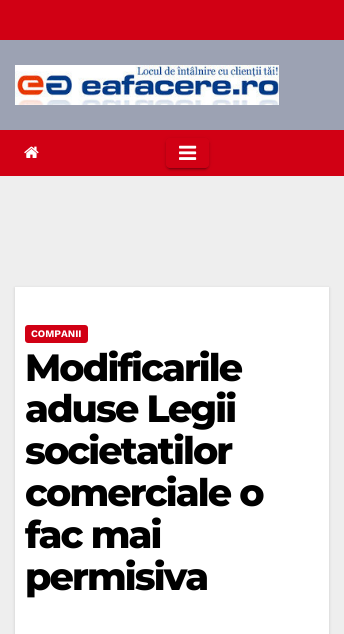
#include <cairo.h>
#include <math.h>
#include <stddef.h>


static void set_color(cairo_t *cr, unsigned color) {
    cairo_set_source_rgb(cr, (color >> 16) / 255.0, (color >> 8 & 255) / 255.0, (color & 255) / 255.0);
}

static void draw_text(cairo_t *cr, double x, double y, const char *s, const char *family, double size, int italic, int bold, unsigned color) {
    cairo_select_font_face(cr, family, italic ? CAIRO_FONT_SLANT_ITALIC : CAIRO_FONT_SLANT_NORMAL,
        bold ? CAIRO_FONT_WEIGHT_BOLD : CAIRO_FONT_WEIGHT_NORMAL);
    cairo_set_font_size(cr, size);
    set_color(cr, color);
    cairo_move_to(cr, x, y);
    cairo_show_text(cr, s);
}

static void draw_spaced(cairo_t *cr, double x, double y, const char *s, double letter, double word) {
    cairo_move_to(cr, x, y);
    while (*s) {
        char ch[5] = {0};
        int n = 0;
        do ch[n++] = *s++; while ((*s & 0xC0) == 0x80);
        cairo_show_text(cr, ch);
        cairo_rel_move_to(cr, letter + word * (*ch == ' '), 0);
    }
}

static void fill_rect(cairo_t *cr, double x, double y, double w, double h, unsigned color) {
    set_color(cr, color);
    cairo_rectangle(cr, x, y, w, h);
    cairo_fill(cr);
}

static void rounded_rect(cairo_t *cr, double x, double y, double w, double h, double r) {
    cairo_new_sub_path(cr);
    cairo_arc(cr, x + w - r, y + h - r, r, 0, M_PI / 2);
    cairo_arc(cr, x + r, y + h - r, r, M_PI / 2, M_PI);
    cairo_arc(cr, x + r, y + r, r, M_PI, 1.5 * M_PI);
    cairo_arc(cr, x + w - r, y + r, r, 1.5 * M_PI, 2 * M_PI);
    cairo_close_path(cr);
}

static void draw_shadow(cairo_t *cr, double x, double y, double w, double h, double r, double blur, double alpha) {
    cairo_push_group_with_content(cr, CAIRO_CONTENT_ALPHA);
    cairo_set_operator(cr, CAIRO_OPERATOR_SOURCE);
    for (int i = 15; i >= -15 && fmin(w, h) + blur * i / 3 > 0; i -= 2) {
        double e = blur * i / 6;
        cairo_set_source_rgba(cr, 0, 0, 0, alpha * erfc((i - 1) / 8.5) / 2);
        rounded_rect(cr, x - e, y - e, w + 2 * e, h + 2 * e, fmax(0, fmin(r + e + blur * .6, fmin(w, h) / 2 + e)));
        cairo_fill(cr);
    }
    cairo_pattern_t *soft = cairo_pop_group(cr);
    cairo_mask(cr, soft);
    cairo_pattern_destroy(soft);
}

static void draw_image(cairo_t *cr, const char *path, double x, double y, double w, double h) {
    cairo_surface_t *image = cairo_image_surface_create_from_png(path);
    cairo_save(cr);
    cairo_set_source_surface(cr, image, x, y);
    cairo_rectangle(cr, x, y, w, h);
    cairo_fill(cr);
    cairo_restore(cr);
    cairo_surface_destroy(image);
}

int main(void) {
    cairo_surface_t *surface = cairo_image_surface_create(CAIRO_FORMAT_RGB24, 344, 634);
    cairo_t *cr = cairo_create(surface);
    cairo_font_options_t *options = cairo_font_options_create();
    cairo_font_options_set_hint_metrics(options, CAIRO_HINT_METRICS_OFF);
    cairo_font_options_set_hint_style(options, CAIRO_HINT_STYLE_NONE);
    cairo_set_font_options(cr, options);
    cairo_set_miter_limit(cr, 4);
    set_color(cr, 0xEEEEEE);
    cairo_paint(cr);
    fill_rect(cr, 0, 0, 344, 40, 0xD10014);
    fill_rect(cr, 0, 40, 344, 90, 0x9CA2B3);
    draw_image(cr, "assets/img1.png", 15, 65, 264, 40);
    fill_rect(cr, 0, 130, 344, 46, 0xD10014);
    draw_image(cr, "assets/img2.png", 24, 146, 15, 12);
    cairo_save(cr);
    cairo_set_fill_rule(cr, CAIRO_FILL_RULE_EVEN_ODD);
    cairo_new_path(cr);
    cairo_move_to(cr, 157, 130);
    cairo_line_to(cr, 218, 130);
    cairo_line_to(cr, 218, 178);
    cairo_line_to(cr, 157, 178);
    cairo_close_path(cr);
    cairo_move_to(cr, 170, 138);
    cairo_line_to(cr, 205, 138);
    cairo_curve_to(cr, 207, 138, 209, 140, 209, 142);
    cairo_line_to(cr, 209, 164);
    cairo_curve_to(cr, 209, 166, 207, 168, 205, 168);
    cairo_line_to(cr, 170, 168);
    cairo_curve_to(cr, 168, 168, 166, 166, 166, 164);
    cairo_line_to(cr, 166, 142);
    cairo_curve_to(cr, 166, 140, 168, 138, 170, 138);
    cairo_close_path(cr);
    cairo_clip(cr);
    set_color(cr, 0x000000);
    draw_shadow(cr, 166, 139, 43, 30, 4, 2.5, 0.12);
    cairo_restore(cr);
    cairo_save(cr);
    cairo_set_fill_rule(cr, CAIRO_FILL_RULE_EVEN_ODD);
    cairo_new_path(cr);
    cairo_move_to(cr, 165, 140);
    cairo_line_to(cr, 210, 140);
    cairo_line_to(cr, 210, 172);
    cairo_line_to(cr, 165, 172);
    cairo_close_path(cr);
    cairo_move_to(cr, 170, 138);
    cairo_line_to(cr, 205, 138);
    cairo_curve_to(cr, 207, 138, 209, 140, 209, 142);
    cairo_line_to(cr, 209, 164);
    cairo_curve_to(cr, 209, 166, 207, 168, 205, 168);
    cairo_line_to(cr, 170, 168);
    cairo_curve_to(cr, 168, 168, 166, 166, 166, 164);
    cairo_line_to(cr, 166, 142);
    cairo_curve_to(cr, 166, 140, 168, 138, 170, 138);
    cairo_close_path(cr);
    cairo_clip(cr);
    set_color(cr, 0x000000);
    draw_shadow(cr, 168, 143, 39, 26, 2, 0.5, 0.2);
    cairo_restore(cr);
    cairo_save(cr);
    cairo_set_fill_rule(cr, CAIRO_FILL_RULE_EVEN_ODD);
    cairo_new_path(cr);
    cairo_move_to(cr, 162, 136);
    cairo_line_to(cr, 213, 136);
    cairo_line_to(cr, 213, 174);
    cairo_line_to(cr, 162, 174);
    cairo_close_path(cr);
    cairo_move_to(cr, 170, 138);
    cairo_line_to(cr, 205, 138);
    cairo_curve_to(cr, 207, 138, 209, 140, 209, 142);
    cairo_line_to(cr, 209, 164);
    cairo_curve_to(cr, 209, 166, 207, 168, 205, 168);
    cairo_line_to(cr, 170, 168);
    cairo_curve_to(cr, 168, 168, 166, 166, 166, 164);
    cairo_line_to(cr, 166, 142);
    cairo_curve_to(cr, 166, 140, 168, 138, 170, 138);
    cairo_close_path(cr);
    cairo_clip(cr);
    set_color(cr, 0x000000);
    draw_shadow(cr, 166, 140, 43, 30, 4, 1, 0.14);
    cairo_restore(cr);
    draw_image(cr, "assets/img3.png", 179, 145, 18, 15);
    set_color(cr, 0x000000);
    draw_shadow(cr, 15, 288, 314, 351, 0, 1.5, 0.15);
    fill_rect(cr, 15, 287, 314, 347, 0xFFFFFF);
    set_color(cr, 0xD10014);
    rounded_rect(cr, 25, 325, 63, 18, 3);
    cairo_fill(cr);
    draw_text(cr, 31, 337, "COMPANII", "Work Sans", 10, 0, 1, 0xFFFFFF);
    cairo_select_font_face(cr, "Montserrat ExtraBold", CAIRO_FONT_SLANT_NORMAL, CAIRO_FONT_WEIGHT_NORMAL);
    cairo_set_font_size(cr, 38);
    set_color(cr, 0x000000);
    draw_spaced(cr, 25, 381, "Modificarile", -1.9, 0);
    draw_spaced(cr, 25, 422, "aduse Legii", -1.9, 0);
    draw_spaced(cr, 25, 464, "societatilor", -1.9, 0);
    draw_spaced(cr, 25, 506, "comerciale o", -1.9, 0);
    draw_spaced(cr, 25, 548, "fac mai", -1.9, 0);
    draw_spaced(cr, 25, 590, "permisiva", -1.9, 0);
    cairo_surface_write_to_png(surface, "output.png");
    cairo_font_options_destroy(options);
    cairo_destroy(cr);
    cairo_surface_destroy(surface);
    return 0;
}
